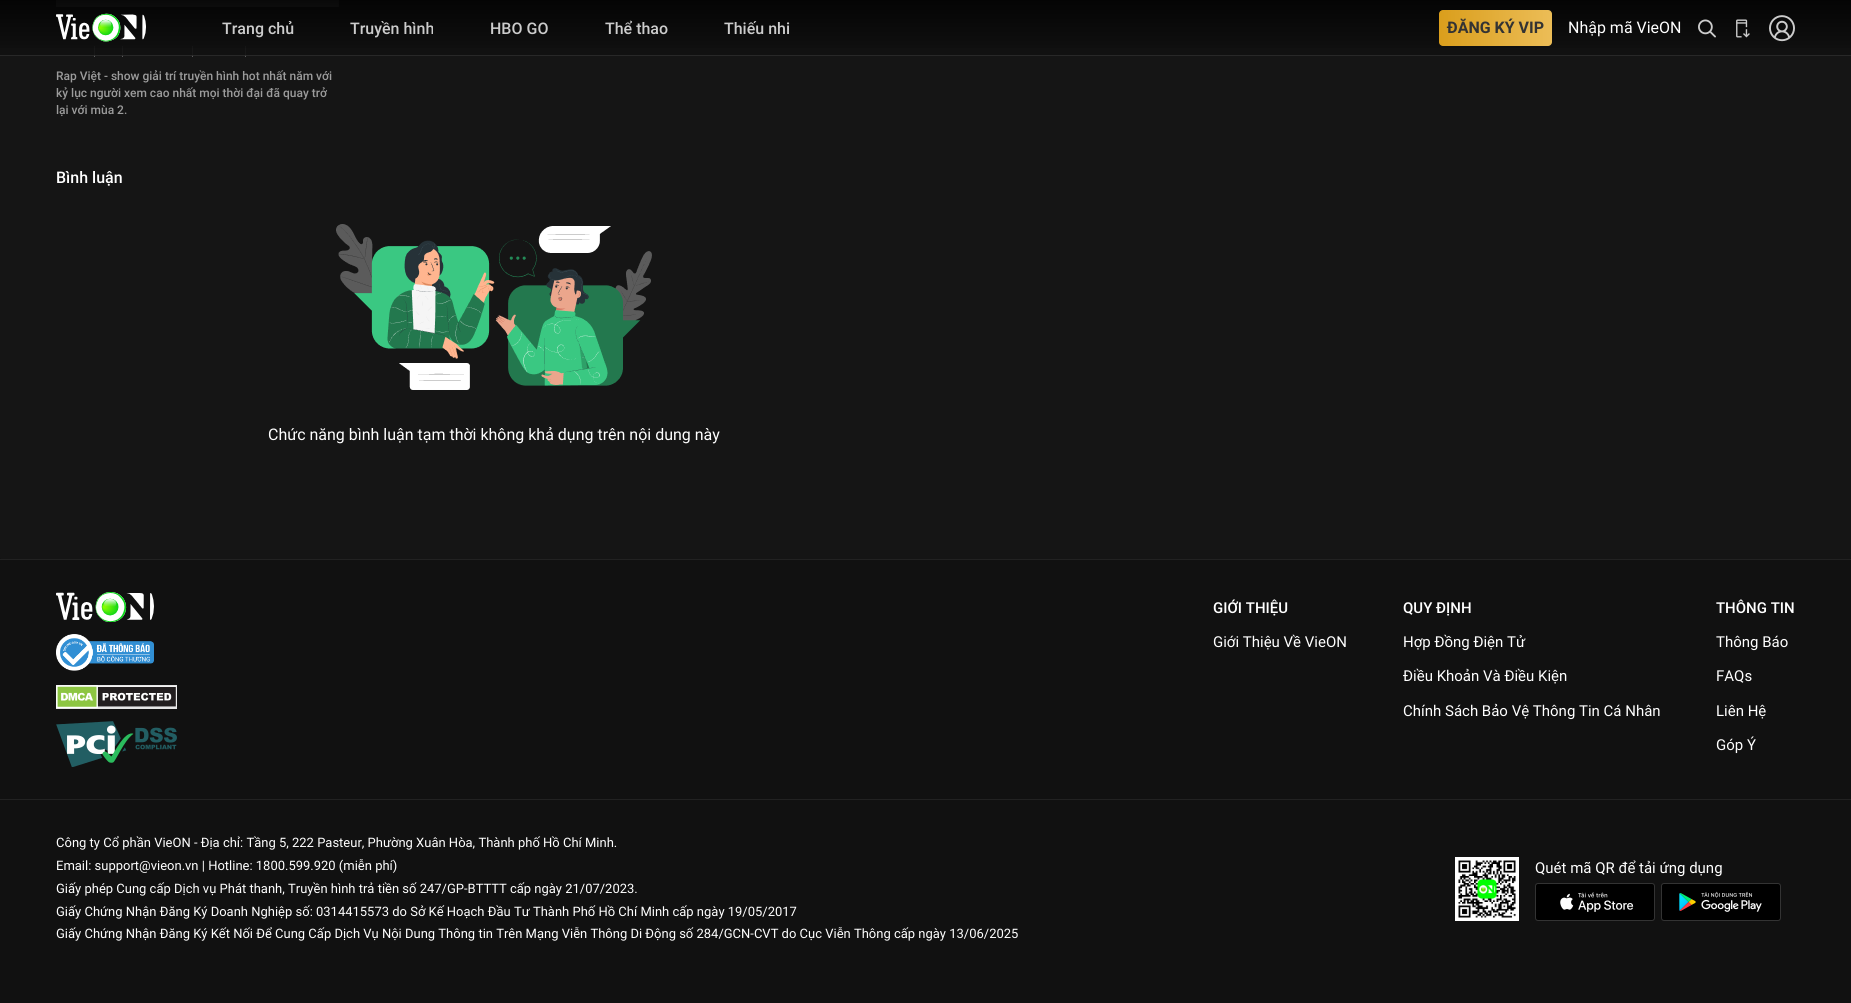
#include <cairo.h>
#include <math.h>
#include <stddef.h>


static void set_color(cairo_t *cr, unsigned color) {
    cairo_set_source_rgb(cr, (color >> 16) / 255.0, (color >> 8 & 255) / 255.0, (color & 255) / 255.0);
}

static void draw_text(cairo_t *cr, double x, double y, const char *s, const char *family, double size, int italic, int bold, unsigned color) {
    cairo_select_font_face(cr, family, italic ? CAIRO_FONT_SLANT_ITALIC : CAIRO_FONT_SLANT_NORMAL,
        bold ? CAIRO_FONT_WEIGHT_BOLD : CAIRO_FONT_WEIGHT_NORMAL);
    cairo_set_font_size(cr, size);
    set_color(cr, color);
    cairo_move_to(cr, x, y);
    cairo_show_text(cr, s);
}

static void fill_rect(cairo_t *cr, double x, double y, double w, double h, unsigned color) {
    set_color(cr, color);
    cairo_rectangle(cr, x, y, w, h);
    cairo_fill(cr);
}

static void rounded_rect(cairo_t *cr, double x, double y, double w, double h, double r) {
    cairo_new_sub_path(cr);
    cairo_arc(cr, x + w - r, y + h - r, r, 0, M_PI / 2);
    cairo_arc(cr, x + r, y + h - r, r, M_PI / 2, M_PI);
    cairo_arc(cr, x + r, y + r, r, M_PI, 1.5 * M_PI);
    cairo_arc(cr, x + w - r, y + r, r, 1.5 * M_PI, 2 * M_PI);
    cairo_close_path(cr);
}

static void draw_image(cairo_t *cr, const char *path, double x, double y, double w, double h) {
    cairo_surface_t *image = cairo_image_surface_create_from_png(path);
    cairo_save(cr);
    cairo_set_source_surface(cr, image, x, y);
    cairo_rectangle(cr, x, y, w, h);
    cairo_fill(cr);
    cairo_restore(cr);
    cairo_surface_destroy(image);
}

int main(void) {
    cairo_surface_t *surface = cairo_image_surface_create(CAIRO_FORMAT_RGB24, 1851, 1003);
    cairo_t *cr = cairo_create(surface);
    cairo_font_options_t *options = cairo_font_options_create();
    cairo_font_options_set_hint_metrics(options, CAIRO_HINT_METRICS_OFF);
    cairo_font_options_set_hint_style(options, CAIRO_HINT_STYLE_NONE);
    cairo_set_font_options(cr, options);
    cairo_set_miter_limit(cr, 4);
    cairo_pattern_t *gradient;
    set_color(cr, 0x111111);
    cairo_paint(cr);
    set_color(cr, 0x151515);
    rounded_rect(cr, 0, -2, 1851, 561, 2);
    cairo_fill(cr);
    draw_image(cr, "assets/img5.png", 56, 0, 283, 7);
    fill_rect(cr, 94, 46, 1, 11, 0x5B5B5B);
    fill_rect(cr, 122, 46, 1, 11, 0x5B5B5B);
    fill_rect(cr, 192, 46, 1, 11, 0x5B5B5B);
    fill_rect(cr, 245, 46, 1, 11, 0x5B5B5B);
    cairo_set_source_rgba(cr, 0.067, 0.067, 0.067, 0.9);
    cairo_rectangle(cr, 0, 0, 1851, 56);
    cairo_fill(cr);
    gradient = cairo_pattern_create_linear(926, 56, 926, 0);
    cairo_pattern_add_color_stop_rgba(gradient, 0, 0, 0, 0, 0);
    cairo_pattern_add_color_stop_rgba(gradient, 1, 0, 0, 0, 0.75);
    cairo_set_source(cr, gradient);
    cairo_pattern_destroy(gradient);
    cairo_rectangle(cr, 0, 0, 1851, 48);
    cairo_fill(cr);
    cairo_set_source_rgba(cr, 1, 1, 1, 0.1);
    cairo_rectangle(cr, 0, 55, 1851, 1);
    cairo_fill(cr);
    draw_image(cr, "assets/img1.png", 56, 13, 90, 29);
    draw_text(cr, 222, 34, "Trang chủ", "Roboto Medium", 16, 0, 0, 0xCCCCCC);
    draw_text(cr, 350, 34, "Truyền hình", "Roboto Medium", 16, 0, 0, 0xCCCCCC);
    draw_text(cr, 490, 34, "HBO GO", "Roboto Medium", 16, 0, 0, 0xCCCCCC);
    draw_text(cr, 605, 34, "Thể thao", "Roboto Medium", 16, 0, 0, 0xCCCCCC);
    draw_text(cr, 724, 34, "Thiếu nhi", "Roboto Medium", 16, 0, 0, 0xCCCCCC);
    gradient = cairo_pattern_create_linear(1439, 28, 1552, 28);
    cairo_pattern_add_color_stop_rgba(gradient, 0, 0.855, 0.62, 0.11, 1);
    cairo_pattern_add_color_stop_rgba(gradient, 1, 0.925, 0.741, 0.341, 1);
    cairo_set_source(cr, gradient);
    cairo_pattern_destroy(gradient);
    rounded_rect(cr, 1439, 10, 113, 36, 4);
    cairo_fill(cr);
    draw_text(cr, 1447, 33, "ĐĂNG KÝ VIP", "Roboto", 16, 0, 1, 0x333333);
    draw_text(cr, 1568, 33, "Nhập mã VieON", "Roboto", 16, 0, 0, 0xFFFFFF);
    draw_image(cr, "assets/img2.png", 1698, 19, 18, 19);
    draw_image(cr, "assets/img3.png", 1736, 19, 14, 19);
    draw_image(cr, "assets/img4.png", 1769, 15, 26, 27);
    draw_text(cr, 56, 80, "Rap Việt - show giải trí truyền hình hot nhất năm với", "Roboto Medium", 12, 0, 0, 0x9B9B9B);
    draw_text(cr, 56, 97, "kỷ lục người xem cao nhất mọi thời đại đã quay trở", "Roboto Medium", 12, 0, 0, 0x9B9B9B);
    draw_text(cr, 56, 114, "lại với mùa 2.", "Roboto Medium", 12, 0, 0, 0x9B9B9B);
    draw_text(cr, 56, 183, "Bình luận", "Roboto Medium", 16, 0, 0, 0xFFFFFF);
    draw_image(cr, "assets/img6.png", 336, 224, 316, 166);
    draw_text(cr, 268, 440, "Chức năng bình luận tạm thời không khả dụng trên nội dung này", "Roboto", 16, 0, 0, 0xFFFFFF);
    fill_rect(cr, 0, 559, 1851, 1, 0x222222);
    draw_image(cr, "assets/img7.png", 56, 592, 98, 30);
    draw_image(cr, "assets/img8.png", 56, 634, 98, 37);
    fill_rect(cr, 56, 685, 121, 24, 0xE6E6E6);
    draw_image(cr, "assets/img9.png", 56, 685, 121, 23);
    draw_image(cr, "assets/img10.png", 56, 721, 121, 46);
    draw_text(cr, 1213, 613, "GIỚI THIỆU", "Roboto Medium", 15, 0, 0, 0xFFFFFF);
    draw_text(cr, 1213, 647, "Giới Thiệu Về VieON", "Roboto", 15, 0, 0, 0xFFFFFF);
    draw_text(cr, 1403, 613, "QUY ĐỊNH", "Roboto Medium", 15, 0, 0, 0xFFFFFF);
    draw_text(cr, 1403, 647, "Hợp Đồng Điện Tử", "Roboto", 15, 0, 0, 0xFFFFFF);
    draw_text(cr, 1403, 681, "Điều Khoản Và Điều Kiện", "Roboto", 15, 0, 0, 0xFFFFFF);
    draw_text(cr, 1403, 716, "Chính Sách Bảo Vệ Thông Tin Cá Nhân", "Roboto", 15, 0, 0, 0xFFFFFF);
    draw_text(cr, 1716, 613, "THÔNG TIN", "Roboto Medium", 15, 0, 0, 0xFFFFFF);
    draw_text(cr, 1716, 647, "Thông Báo", "Roboto", 15, 0, 0, 0xFFFFFF);
    draw_text(cr, 1716, 681, "FAQs", "Roboto", 15, 0, 0, 0xFFFFFF);
    draw_text(cr, 1716, 716, "Liên Hệ", "Roboto", 15, 0, 0, 0xFFFFFF);
    draw_text(cr, 1716, 750, "Góp Ý", "Roboto", 15, 0, 0, 0xFFFFFF);
    fill_rect(cr, 0, 799, 1851, 1, 0x222222);
    draw_text(cr, 56, 847, "Công ty Cổ phần VieON - Địa chỉ: Tầng 5, 222 Pasteur, Phường Xuân Hòa, Thành phố Hồ Chí Minh.", "Roboto", 13, 0, 0, 0xFFFFFF);
    draw_text(cr, 56, 870, "Email: support@vieon.vn | Hotline: 1800.599.920 (miễn phí)", "Roboto", 13, 0, 0, 0xFFFFFF);
    draw_text(cr, 56, 893, "Giấy phép Cung cấp Dịch vụ Phát thanh, Truyền hình trả tiền số 247/GP-BTTTT cấp ngày 21/07/2023.", "Roboto", 13, 0, 0, 0xFFFFFF);
    draw_text(cr, 56, 916, "Giấy Chứng Nhận Đăng Ký Doanh Nghiệp số: 0314415573 do Sở Kế Hoạch Đầu Tư Thành Phố Hồ Chí Minh cấp ngày 19/05/2017", "Roboto", 13, 0, 0, 0xFFFFFF);
    draw_text(cr, 56, 938, "Giấy Chứng Nhận Đăng Ký Kết Nối Để Cung Cấp Dịch Vụ Nội Dung Thông tin Trên Mạng Viễn Thông Di Động số 284/GCN-CVT do Cục Viễn Thông cấp ngày 13/06/2025", "Roboto", 13, 0, 0, 0xFFFFFF);
    draw_image(cr, "assets/img11.png", 1455, 857, 64, 64);
    draw_text(cr, 1535, 873, "Quét mã QR để tải ứng dụng", "Roboto", 15, 0, 0, 0xFFFFFF);
    set_color(cr, 0x000000);
    rounded_rect(cr, 1535.5, 883.5, 119, 37, 2.5);
    cairo_fill_preserve(cr);
    set_color(cr, 0x333333);
    cairo_set_line_width(cr, 1);
    cairo_stroke(cr);
    draw_image(cr, "assets/img12.png", 1560, 892, 74, 20);
    set_color(cr, 0x000000);
    rounded_rect(cr, 1661.5, 883.5, 119, 37, 2.5);
    cairo_fill_preserve(cr);
    set_color(cr, 0x333333);
    cairo_stroke(cr);
    draw_image(cr, "assets/img13.png", 1679, 891, 83, 21);
    cairo_surface_write_to_png(surface, "output.png");
    cairo_font_options_destroy(options);
    cairo_destroy(cr);
    cairo_surface_destroy(surface);
    return 0;
}
